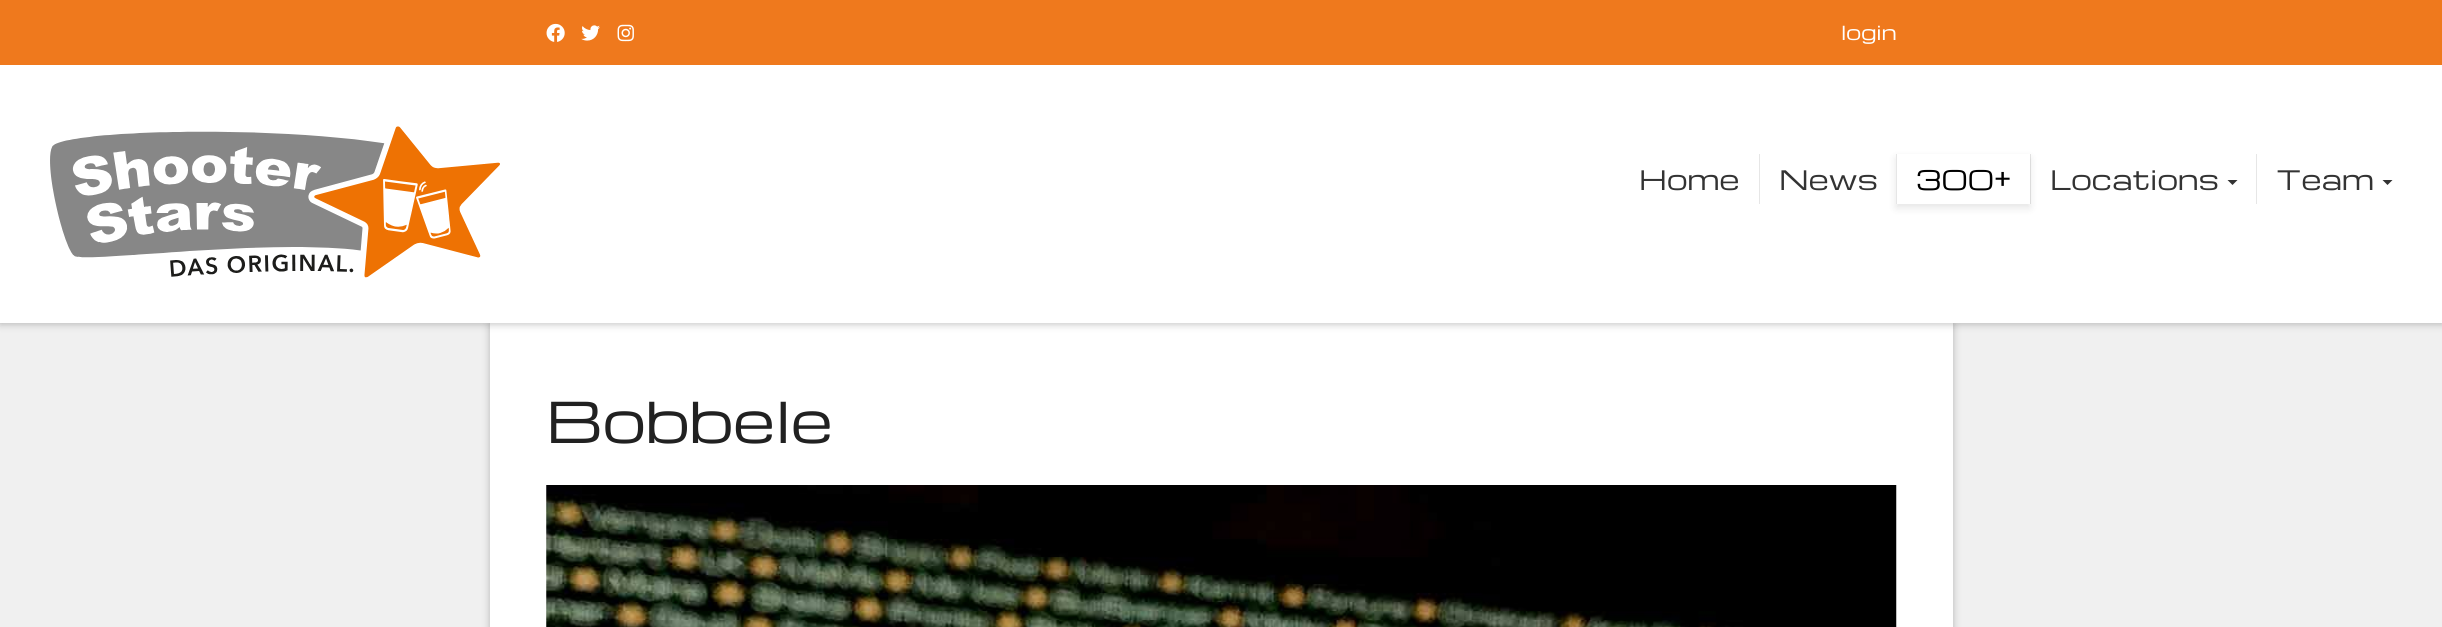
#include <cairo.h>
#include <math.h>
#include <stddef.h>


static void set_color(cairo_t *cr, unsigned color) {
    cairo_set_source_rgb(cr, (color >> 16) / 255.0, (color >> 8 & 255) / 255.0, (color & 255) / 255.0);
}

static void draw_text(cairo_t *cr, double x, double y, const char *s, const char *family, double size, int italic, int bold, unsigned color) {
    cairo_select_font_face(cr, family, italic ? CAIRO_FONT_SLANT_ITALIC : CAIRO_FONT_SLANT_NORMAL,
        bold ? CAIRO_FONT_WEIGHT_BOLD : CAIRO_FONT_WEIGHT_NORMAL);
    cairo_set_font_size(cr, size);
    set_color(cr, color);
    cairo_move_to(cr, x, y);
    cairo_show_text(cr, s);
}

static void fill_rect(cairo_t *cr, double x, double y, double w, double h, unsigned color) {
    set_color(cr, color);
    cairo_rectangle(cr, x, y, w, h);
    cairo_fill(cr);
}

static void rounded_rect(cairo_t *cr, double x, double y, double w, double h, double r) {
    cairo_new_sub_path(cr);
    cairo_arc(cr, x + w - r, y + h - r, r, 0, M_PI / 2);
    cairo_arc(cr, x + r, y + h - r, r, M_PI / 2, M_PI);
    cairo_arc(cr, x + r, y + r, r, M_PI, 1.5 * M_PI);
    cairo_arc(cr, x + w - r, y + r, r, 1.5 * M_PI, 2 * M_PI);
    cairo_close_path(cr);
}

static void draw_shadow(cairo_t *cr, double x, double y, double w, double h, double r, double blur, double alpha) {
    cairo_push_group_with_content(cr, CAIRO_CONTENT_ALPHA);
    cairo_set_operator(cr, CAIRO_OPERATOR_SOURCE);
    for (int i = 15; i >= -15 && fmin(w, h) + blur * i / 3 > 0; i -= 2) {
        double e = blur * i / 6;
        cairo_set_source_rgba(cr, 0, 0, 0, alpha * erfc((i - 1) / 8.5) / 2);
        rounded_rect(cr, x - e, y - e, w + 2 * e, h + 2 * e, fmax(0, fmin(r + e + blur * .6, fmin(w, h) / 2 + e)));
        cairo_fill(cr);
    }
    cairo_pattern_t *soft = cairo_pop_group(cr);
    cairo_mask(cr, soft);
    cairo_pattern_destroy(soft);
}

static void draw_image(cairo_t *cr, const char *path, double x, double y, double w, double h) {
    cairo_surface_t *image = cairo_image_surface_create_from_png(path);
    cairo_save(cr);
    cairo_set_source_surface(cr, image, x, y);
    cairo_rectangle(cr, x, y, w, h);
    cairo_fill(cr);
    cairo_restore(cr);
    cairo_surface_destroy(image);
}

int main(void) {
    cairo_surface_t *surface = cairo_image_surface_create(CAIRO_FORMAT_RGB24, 2442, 627);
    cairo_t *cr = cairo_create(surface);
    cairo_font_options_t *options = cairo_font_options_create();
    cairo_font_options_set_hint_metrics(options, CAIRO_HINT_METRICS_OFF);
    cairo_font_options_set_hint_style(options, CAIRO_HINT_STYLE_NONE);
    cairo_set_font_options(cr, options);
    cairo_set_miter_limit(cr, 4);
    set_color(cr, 0xF0F0F0);
    cairo_paint(cr);
    set_color(cr, 0x000000);
    draw_shadow(cr, 490, 324, 1463, 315, 0, 4, 0.25);
    fill_rect(cr, 490, 323, 1463, 304, 0xFFFFFF);
    set_color(cr, 0x000000);
    draw_shadow(cr, 0, 1, 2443, 323, 0, 4, 0.25);
    fill_rect(cr, 0, 65, 2442, 258, 0xFFFFFF);
    fill_rect(cr, 0, 0, 2442, 65, 0xEF791D);
    draw_image(cr, "assets/img1.png", 546, 23, 19, 19);
    draw_image(cr, "assets/img2.png", 581, 25, 19, 16);
    draw_image(cr, "assets/img3.png", 617, 24, 17, 18);
    draw_text(cr, 1841, 40, "login", "Michroma", 19, 0, 0, 0xFFFFFF);
    draw_image(cr, "assets/img4.png", 50, 126, 450, 152);
    draw_text(cr, 1639, 190, "Home", "Michroma", 26.25, 0, 0, 0x333333);
    fill_rect(cr, 1759, 154, 1, 50, 0xE6E6E6);
    draw_text(cr, 1779, 190, "News", "Michroma", 26.25, 0, 0, 0x333333);
    cairo_save(cr);
    cairo_set_fill_rule(cr, CAIRO_FILL_RULE_EVEN_ODD);
    cairo_new_path(cr);
    cairo_move_to(cr, 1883, 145);
    cairo_line_to(cr, 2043, 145);
    cairo_line_to(cr, 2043, 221);
    cairo_line_to(cr, 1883, 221);
    cairo_close_path(cr);
    cairo_move_to(cr, 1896, 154);
    cairo_line_to(cr, 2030, 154);
    cairo_line_to(cr, 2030, 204);
    cairo_line_to(cr, 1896, 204);
    cairo_close_path(cr);
    cairo_clip(cr);
    set_color(cr, 0x000000);
    draw_shadow(cr, 1896, 158, 134, 50, 0, 4, 0.1);
    cairo_restore(cr);
    cairo_set_source_rgba(cr, 0, 0, 0, 0.1);
    cairo_rectangle(cr, 1896, 154, 1, 50);
    cairo_fill(cr);
    draw_text(cr, 1916, 190, "300+", "Michroma", 26.25, 0, 0, 0x000000);
    cairo_set_source_rgba(cr, 0, 0, 0, 0.1);
    cairo_rectangle(cr, 2030, 154, 1, 50);
    cairo_fill(cr);
    draw_text(cr, 2050, 190, "Locations", "Michroma", 26.25, 0, 0, 0x333333);
    cairo_new_path(cr);
    cairo_move_to(cr, 2227.5, 180);
    cairo_line_to(cr, 2237.5, 180);
    cairo_line_to(cr, 2232.5, 185);
    cairo_close_path(cr);
    cairo_fill(cr);
    fill_rect(cr, 2256, 154, 1, 50, 0xE6E6E6);
    draw_text(cr, 2276, 190, "Team", "Michroma", 26.25, 0, 0, 0x333333);
    cairo_new_path(cr);
    cairo_move_to(cr, 2382.5, 180);
    cairo_line_to(cr, 2392.5, 180);
    cairo_line_to(cr, 2387.5, 185);
    cairo_close_path(cr);
    cairo_fill(cr);
    draw_text(cr, 546, 443, "Bobbele", "Michroma", 55, 0, 0, 0x212121);
    draw_image(cr, "assets/img5.png", 546, 485, 1351, 142);
    cairo_surface_write_to_png(surface, "output.png");
    cairo_font_options_destroy(options);
    cairo_destroy(cr);
    cairo_surface_destroy(surface);
    return 0;
}
